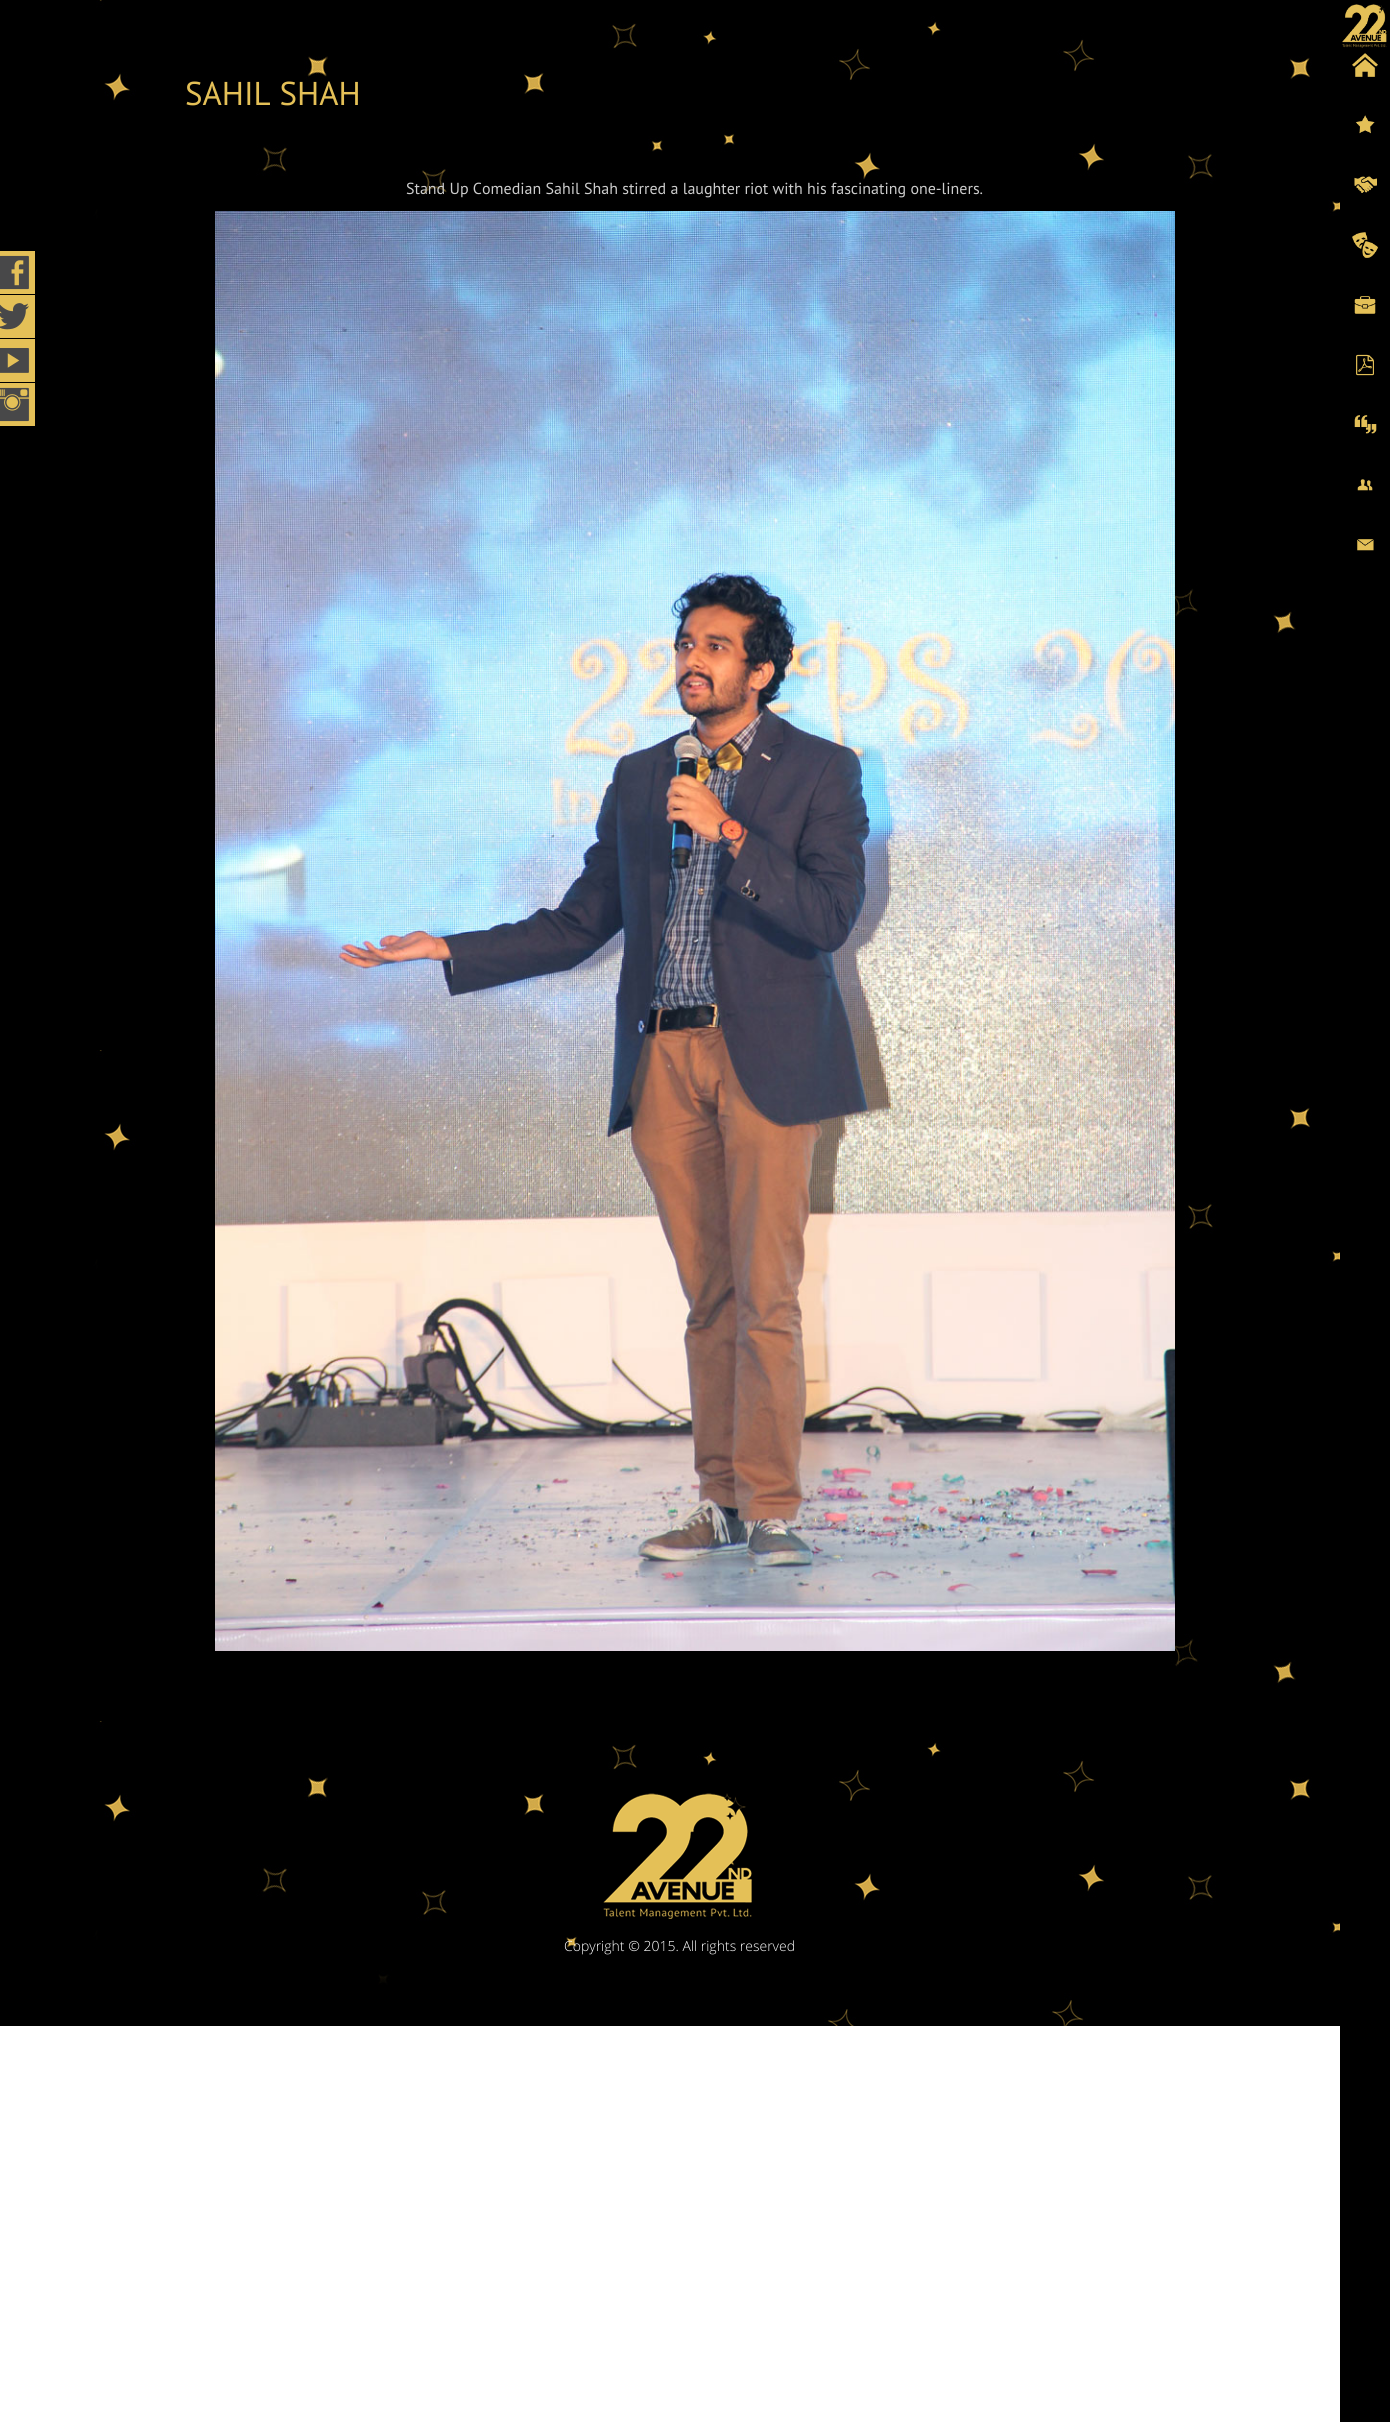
#include <cairo.h>
#include <math.h>
#include <stddef.h>


static void set_color(cairo_t *cr, unsigned color) {
    cairo_set_source_rgb(cr, (color >> 16) / 255.0, (color >> 8 & 255) / 255.0, (color & 255) / 255.0);
}

static void draw_text(cairo_t *cr, double x, double y, const char *s, const char *family, double size, int italic, int bold, unsigned color) {
    cairo_select_font_face(cr, family, italic ? CAIRO_FONT_SLANT_ITALIC : CAIRO_FONT_SLANT_NORMAL,
        bold ? CAIRO_FONT_WEIGHT_BOLD : CAIRO_FONT_WEIGHT_NORMAL);
    cairo_set_font_size(cr, size);
    set_color(cr, color);
    cairo_move_to(cr, x, y);
    cairo_show_text(cr, s);
}

static void fill_rect(cairo_t *cr, double x, double y, double w, double h, unsigned color) {
    set_color(cr, color);
    cairo_rectangle(cr, x, y, w, h);
    cairo_fill(cr);
}

static void draw_image(cairo_t *cr, const char *path, double x, double y, double w, double h) {
    cairo_surface_t *image = cairo_image_surface_create_from_png(path);
    cairo_save(cr);
    cairo_set_source_surface(cr, image, x, y);
    cairo_rectangle(cr, x, y, w, h);
    cairo_fill(cr);
    cairo_restore(cr);
    cairo_surface_destroy(image);
}

int main(void) {
    cairo_surface_t *surface = cairo_image_surface_create(CAIRO_FORMAT_RGB24, 1390, 2422);
    cairo_t *cr = cairo_create(surface);
    cairo_font_options_t *options = cairo_font_options_create();
    cairo_font_options_set_hint_metrics(options, CAIRO_HINT_METRICS_OFF);
    cairo_font_options_set_hint_style(options, CAIRO_HINT_STYLE_NONE);
    cairo_set_font_options(cr, options);
    cairo_set_miter_limit(cr, 4);
    set_color(cr, 0xFFFFFF);
    cairo_paint(cr);
    draw_image(cr, "assets/img1.png", 0, 0, 1340, 1721);
    draw_text(cr, 185, 105, "SAHIL SHAH", "PT Sans", 33, 0, 0, 0xE4C057);
    draw_text(cr, 406, 194, "Stand Up Comedian Sahil Shah stirred a laughter riot with his fascinating one-liners.", "PT Sans", 16, 0, 0, 0xCCCCCC);
    draw_image(cr, "assets/img2.png", 215, 211, 960, 1440);
    fill_rect(cr, 1340, 0, 50, 2422, 0x000000);
    draw_image(cr, "assets/img3.png", 1342, 4, 45, 44);
    draw_image(cr, "assets/img4.png", 1352, 53, 26, 24);
    draw_image(cr, "assets/img5.png", 1355, 115, 20, 19);
    draw_image(cr, "assets/img6.png", 1354, 176, 23, 17);
    draw_image(cr, "assets/img7.png", 1352, 232, 27, 26);
    draw_image(cr, "assets/img8.png", 1354, 296, 22, 18);
    draw_image(cr, "assets/img9.png", 1356, 354, 18, 22);
    draw_image(cr, "assets/img10.png", 1354, 415, 23, 19);
    draw_image(cr, "assets/img11.png", 1357, 479, 16, 12);
    draw_image(cr, "assets/img12.png", 1357, 539, 17, 12);
    fill_rect(cr, 0, 251, 35, 43, 0xE4C057);
    draw_image(cr, "assets/img13.png", 0, 255, 29, 35);
    fill_rect(cr, 0, 295, 35, 43, 0xE4C057);
    draw_image(cr, "assets/img14.png", 0, 303, 29, 27);
    fill_rect(cr, 0, 339, 35, 43, 0xE4C057);
    draw_image(cr, "assets/img15.png", 0, 348, 29, 25);
    fill_rect(cr, 0, 383, 35, 43, 0xE4C057);
    draw_image(cr, "assets/img16.png", 0, 387, 29, 35);
    draw_image(cr, "assets/img17.png", 0, 1721, 1340, 305);
    draw_image(cr, "assets/img18.png", 603, 1793, 149, 126);
    draw_text(cr, 564, 1951, "Copyright © 2015. All rights reserved", "Open Sans Light", 14, 0, 0, 0xFFFFFF);
    cairo_surface_write_to_png(surface, "output.png");
    cairo_font_options_destroy(options);
    cairo_destroy(cr);
    cairo_surface_destroy(surface);
    return 0;
}
